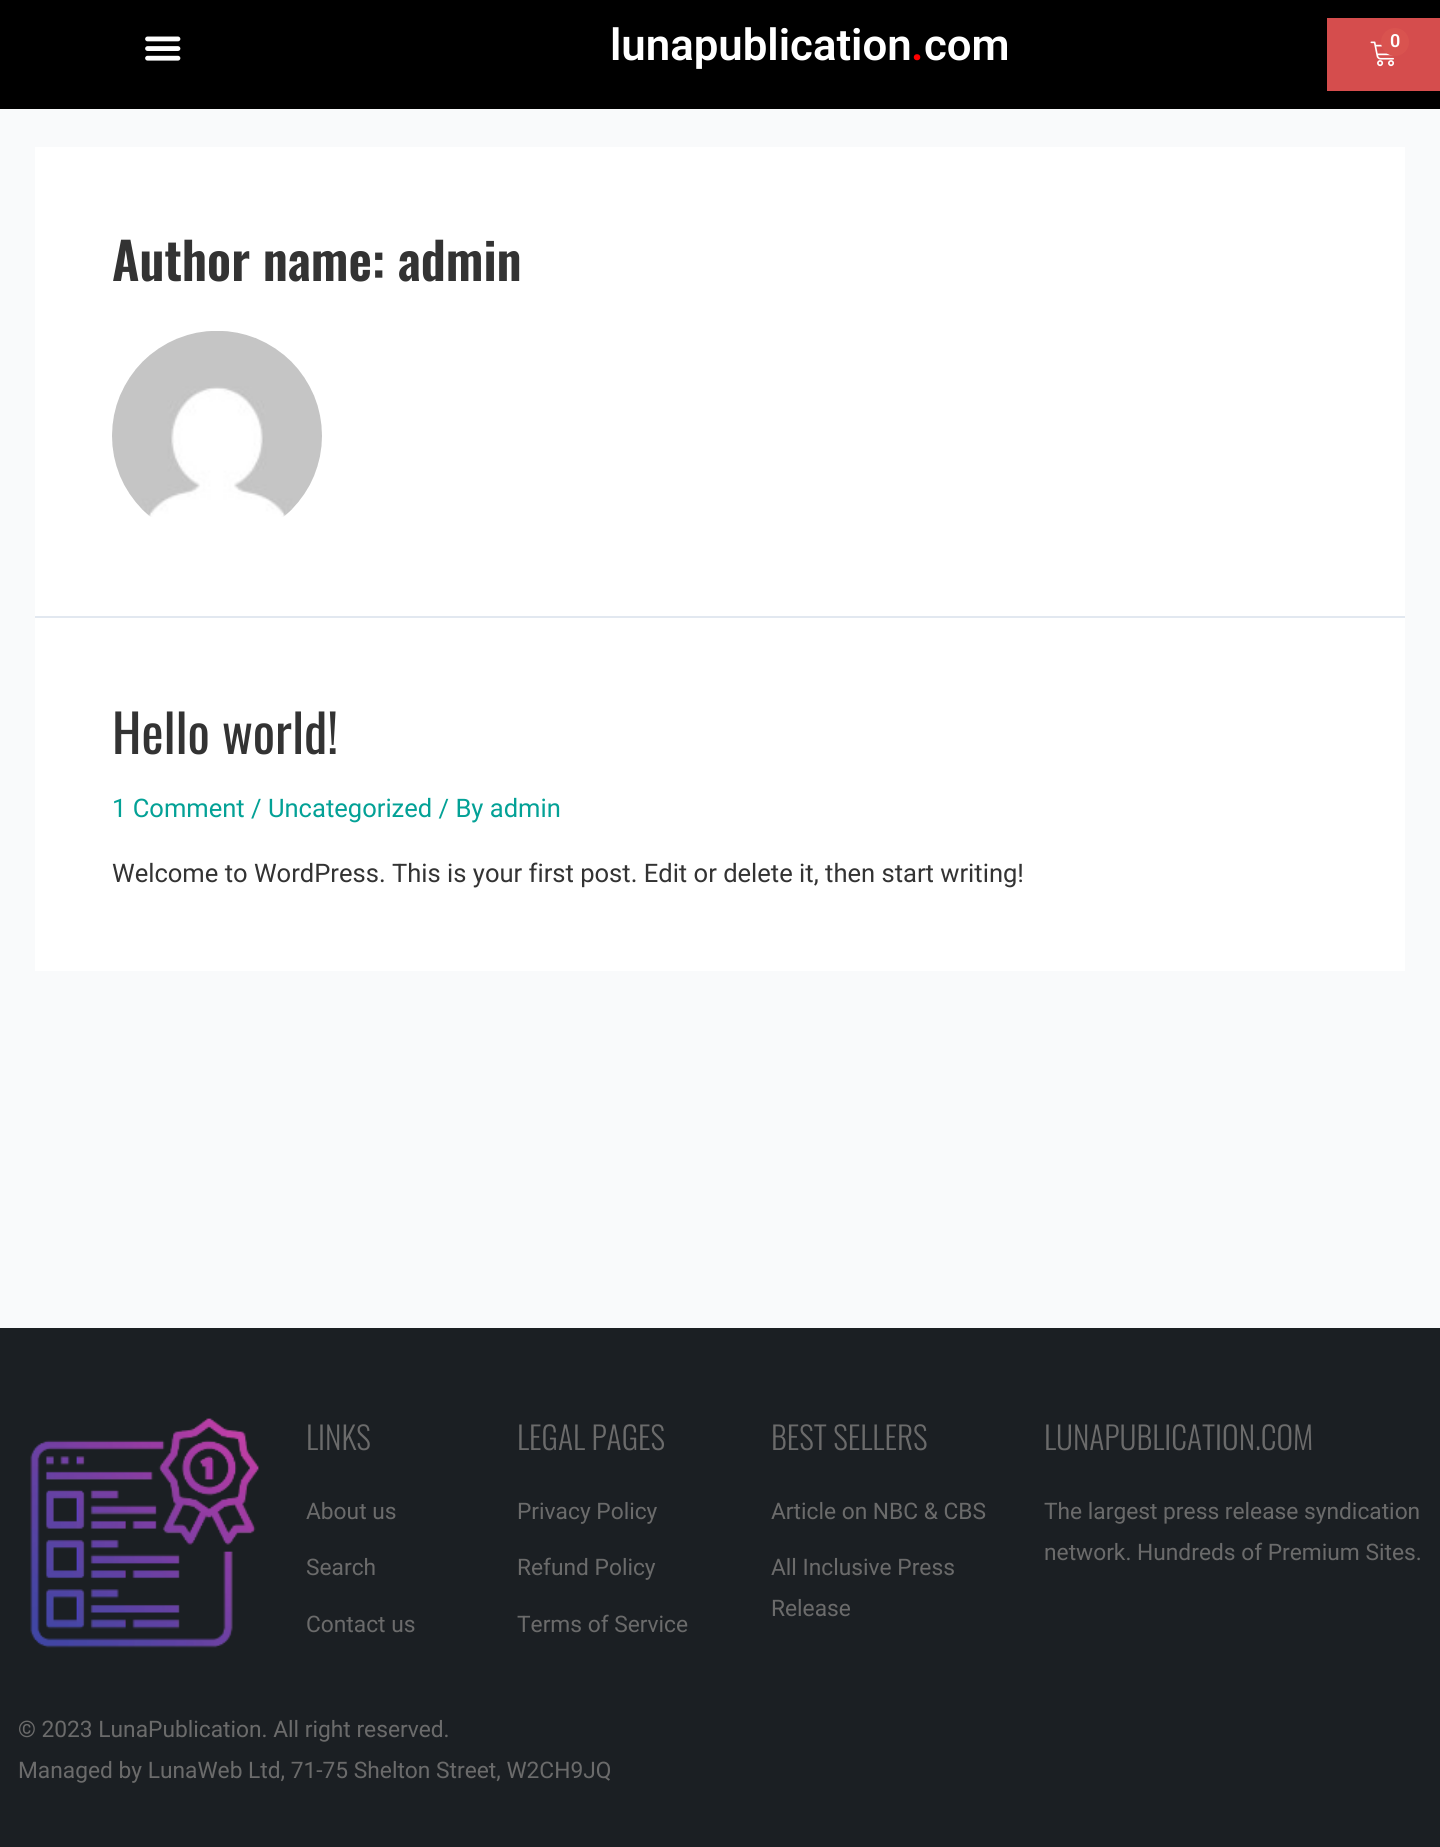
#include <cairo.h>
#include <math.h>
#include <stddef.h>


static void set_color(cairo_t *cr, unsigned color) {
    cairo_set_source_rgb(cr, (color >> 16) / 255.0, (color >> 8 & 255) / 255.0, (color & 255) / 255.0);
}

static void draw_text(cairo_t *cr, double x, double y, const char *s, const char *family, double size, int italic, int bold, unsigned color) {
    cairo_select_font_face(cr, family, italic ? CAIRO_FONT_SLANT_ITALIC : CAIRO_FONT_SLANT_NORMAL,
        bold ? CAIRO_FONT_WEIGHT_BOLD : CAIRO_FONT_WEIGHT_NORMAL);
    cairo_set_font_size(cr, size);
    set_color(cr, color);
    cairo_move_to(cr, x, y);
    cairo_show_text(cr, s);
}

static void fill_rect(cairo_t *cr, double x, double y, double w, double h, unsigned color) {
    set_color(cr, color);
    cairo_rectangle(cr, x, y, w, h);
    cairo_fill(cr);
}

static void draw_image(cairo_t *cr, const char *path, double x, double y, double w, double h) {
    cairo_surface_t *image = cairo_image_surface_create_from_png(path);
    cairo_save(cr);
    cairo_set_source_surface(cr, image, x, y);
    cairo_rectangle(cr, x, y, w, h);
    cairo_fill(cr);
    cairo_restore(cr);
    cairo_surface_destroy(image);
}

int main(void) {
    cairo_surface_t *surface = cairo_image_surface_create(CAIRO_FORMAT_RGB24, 1440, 1847);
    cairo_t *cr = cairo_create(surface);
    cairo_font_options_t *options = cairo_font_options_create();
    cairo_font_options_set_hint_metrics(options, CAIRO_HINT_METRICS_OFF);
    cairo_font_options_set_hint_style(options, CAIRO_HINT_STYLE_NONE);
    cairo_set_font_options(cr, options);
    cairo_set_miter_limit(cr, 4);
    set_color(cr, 0xF9FAFB);
    cairo_paint(cr);
    fill_rect(cr, 0, 0, 1440, 109, 0x000000);
    draw_image(cr, "assets/img1.png", 145, 36, 36, 25);
    draw_text(cr, 610, 60, "lunapublication", "Roboto SemiBold", 43.75, 0, 0, 0xFFFFFF);
    draw_text(cr, 911, 60, ".", "Roboto SemiBold", 43.75, 0, 0, 0xFF0000);
    draw_text(cr, 924, 60, "com", "Roboto SemiBold", 43.75, 0, 0, 0xFFFFFF);
    fill_rect(cr, 1327, 18, 113, 73, 0xD54D4D);
    draw_image(cr, "assets/img2.png", 1370, 41, 24, 26);
    set_color(cr, 0xD9534F);
    cairo_arc(cr, 1395, 42, 14, 0, 2 * M_PI);
    cairo_fill(cr);
    draw_text(cr, 1390, 47, "0", "Roboto SemiBold", 18, 0, 0, 0xFFFFFF);
    fill_rect(cr, 35, 147, 1370, 469, 0xFFFFFF);
    fill_rect(cr, 35, 616, 1370, 2, 0xE2E8F0);
    draw_text(cr, 112, 281, "Author name: admin", "Oswald SemiBold", 51, 0, 0, 0x333333);
    draw_image(cr, "assets/img3.png", 112, 331, 210, 186);
    fill_rect(cr, 35, 618, 1370, 353, 0xFFFFFF);
    draw_text(cr, 112, 754, "Hello world!", "Oswald", 52.5, 0, 0, 0x333333);
    draw_text(cr, 112, 817, "1 Comment / Uncategorized / By admin", "Roboto", 25.55, 0, 0, 0x03A196);
    draw_text(cr, 112, 882, "Welcome to WordPress. This is your first post. Edit or delete it, then start writing!", "Roboto", 25.55, 0, 0, 0x333333);
    fill_rect(cr, 0, 1328, 1440, 519, 0x1B1F23);
    draw_image(cr, "assets/img4.png", 30, 1418, 229, 230);
    draw_text(cr, 306, 1450, "LINKS", "Oswald Light", 31.5, 0, 0, 0x6B6B6B);
    draw_text(cr, 306, 1519, "About us", "Roboto", 22.75, 0, 0, 0x6B6B6B);
    draw_text(cr, 306, 1575, "Search", "Roboto", 22.75, 0, 0, 0x6B6B6B);
    draw_text(cr, 306, 1632, "Contact us", "Roboto", 22.75, 0, 0, 0x6B6B6B);
    draw_text(cr, 517, 1450, "LEGAL PAGES", "Oswald Light", 31.5, 0, 0, 0x6B6B6B);
    draw_text(cr, 517, 1519, "Privacy Policy", "Roboto", 22.75, 0, 0, 0x6B6B6B);
    draw_text(cr, 517, 1575, "Refund Policy", "Roboto", 22.75, 0, 0, 0x6B6B6B);
    draw_text(cr, 517, 1632, "Terms of Service", "Roboto", 22.75, 0, 0, 0x6B6B6B);
    draw_text(cr, 771, 1450, "BEST SELLERS", "Oswald Light", 31.5, 0, 0, 0x6B6B6B);
    draw_text(cr, 771, 1519, "Article on NBC & CBS", "Roboto", 22.75, 0, 0, 0x6B6B6B);
    draw_text(cr, 771, 1575, "All Inclusive Press", "Roboto", 22.75, 0, 0, 0x6B6B6B);
    draw_text(cr, 771, 1616, "Release", "Roboto", 22.75, 0, 0, 0x6B6B6B);
    draw_text(cr, 1044, 1450, "LUNAPUBLICATION.COM", "Oswald Light", 31.5, 0, 0, 0x6B6B6B);
    draw_text(cr, 1044, 1519, "The largest press release syndication", "Roboto", 22.75, 0, 0, 0x6B6B6B);
    draw_text(cr, 1044, 1560, "network. Hundreds of Premium Sites.", "Roboto", 22.75, 0, 0, 0x6B6B6B);
    draw_text(cr, 18, 1737, "© 2023 LunaPublication. All right reserved.", "Roboto", 22.75, 0, 0, 0x6B6B6B);
    draw_text(cr, 18, 1778, "Managed by LunaWeb Ltd, 71-75 Shelton Street, W2CH9JQ", "Roboto", 22.75, 0, 0, 0x6B6B6B);
    cairo_surface_write_to_png(surface, "output.png");
    cairo_font_options_destroy(options);
    cairo_destroy(cr);
    cairo_surface_destroy(surface);
    return 0;
}
